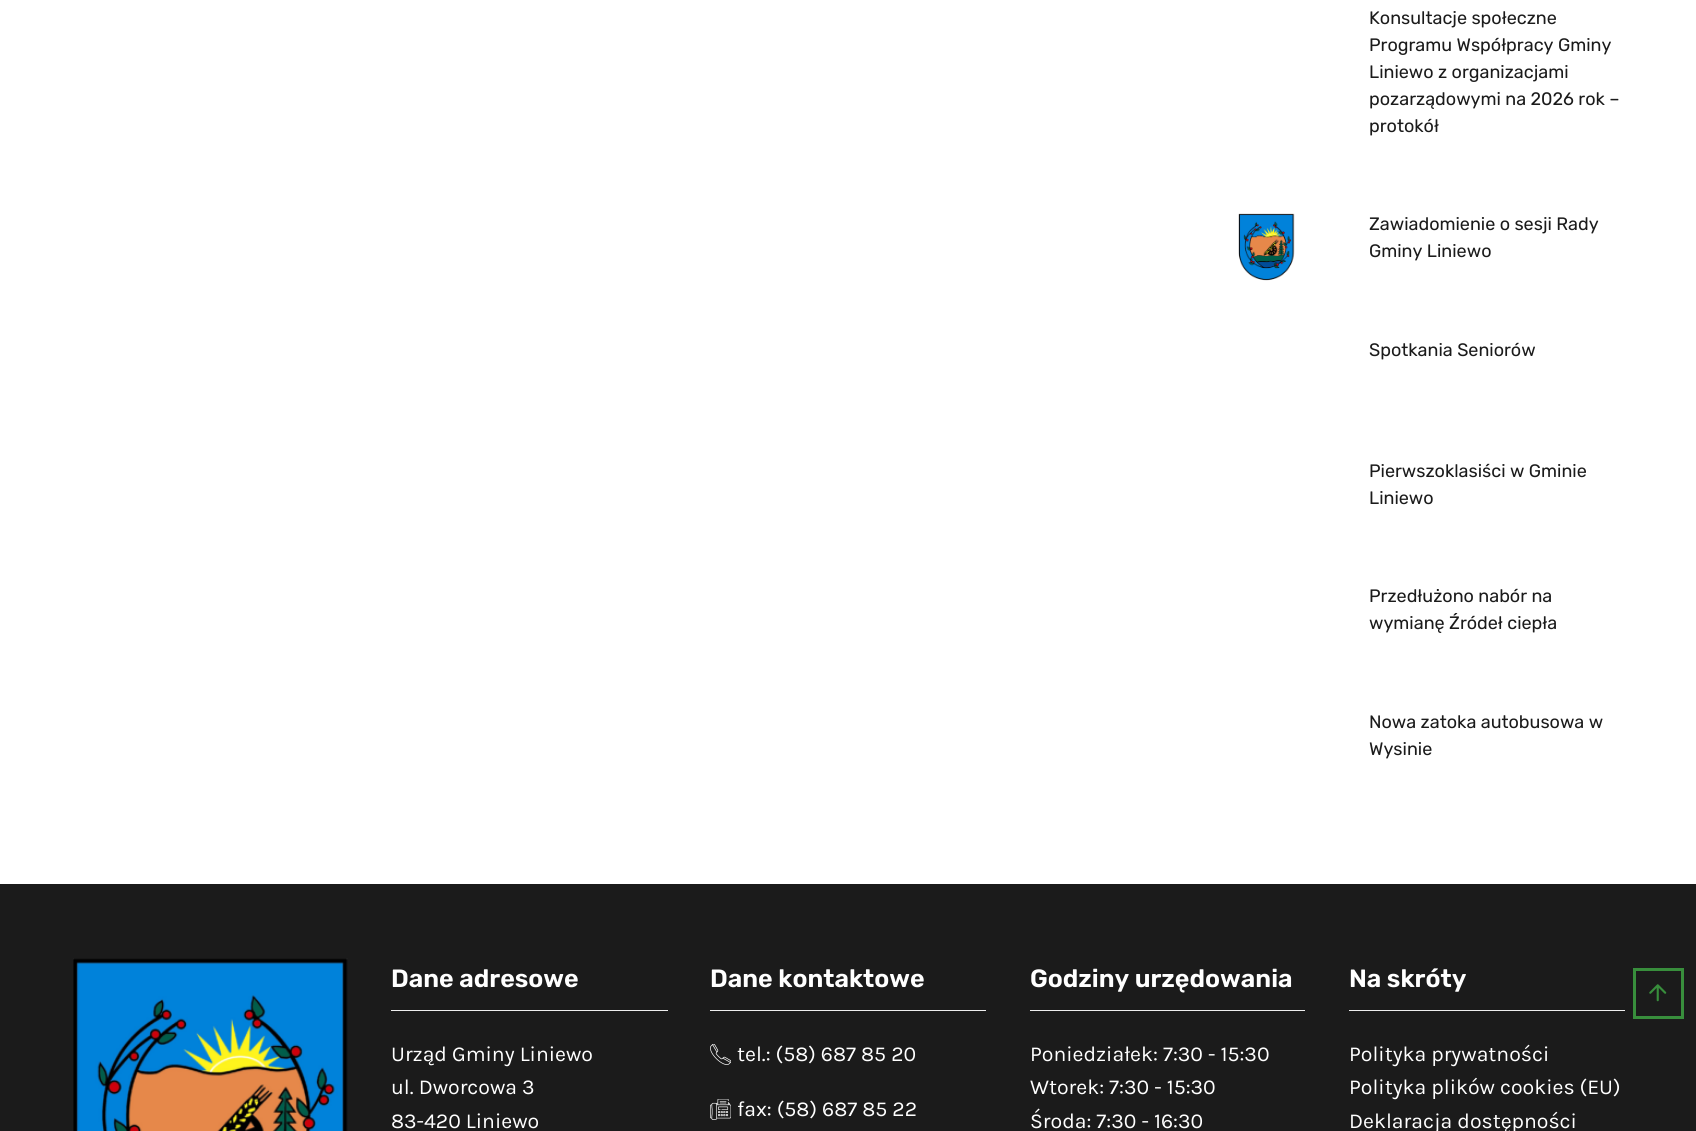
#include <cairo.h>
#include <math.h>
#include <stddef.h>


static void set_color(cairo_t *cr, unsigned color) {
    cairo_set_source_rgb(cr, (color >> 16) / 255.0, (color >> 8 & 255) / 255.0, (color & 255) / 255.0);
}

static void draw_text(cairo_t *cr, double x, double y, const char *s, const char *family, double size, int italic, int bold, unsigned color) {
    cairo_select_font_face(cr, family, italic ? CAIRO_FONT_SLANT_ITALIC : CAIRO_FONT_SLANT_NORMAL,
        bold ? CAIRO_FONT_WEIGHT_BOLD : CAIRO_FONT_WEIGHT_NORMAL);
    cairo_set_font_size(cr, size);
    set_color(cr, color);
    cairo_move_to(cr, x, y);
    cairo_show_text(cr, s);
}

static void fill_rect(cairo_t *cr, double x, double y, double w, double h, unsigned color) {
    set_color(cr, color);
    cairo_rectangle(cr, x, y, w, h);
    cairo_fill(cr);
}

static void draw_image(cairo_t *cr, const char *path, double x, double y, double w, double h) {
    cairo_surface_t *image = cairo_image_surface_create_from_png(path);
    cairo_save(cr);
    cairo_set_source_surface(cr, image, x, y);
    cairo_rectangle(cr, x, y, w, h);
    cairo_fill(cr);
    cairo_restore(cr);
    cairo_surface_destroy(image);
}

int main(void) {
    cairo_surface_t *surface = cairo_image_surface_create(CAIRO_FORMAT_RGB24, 1696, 1131);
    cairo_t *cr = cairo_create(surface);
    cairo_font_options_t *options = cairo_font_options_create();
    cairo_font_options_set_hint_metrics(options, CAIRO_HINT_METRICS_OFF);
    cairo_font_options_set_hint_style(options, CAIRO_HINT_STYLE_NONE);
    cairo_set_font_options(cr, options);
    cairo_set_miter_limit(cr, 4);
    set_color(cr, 0xFFFFFF);
    cairo_paint(cr);
    draw_text(cr, 1369, 24, "Konsultacje społeczne", "Rubik", 18, 0, 0, 0x1B1B1B);
    draw_text(cr, 1369, 51, "Programu Współpracy Gminy", "Rubik", 18, 0, 0, 0x1B1B1B);
    draw_text(cr, 1369, 78, "Liniewo z organizacjami", "Rubik", 18, 0, 0, 0x1B1B1B);
    draw_text(cr, 1369, 105, "pozarządowymi na 2026 rok –", "Rubik", 18, 0, 0, 0x1B1B1B);
    draw_text(cr, 1369, 132, "protokół", "Rubik", 18, 0, 0, 0x1B1B1B);
    draw_image(cr, "assets/img1.png", 1238, 213, 57, 68);
    draw_text(cr, 1369, 230, "Zawiadomienie o sesji Rady", "Rubik", 18, 0, 0, 0x1B1B1B);
    draw_text(cr, 1369, 257, "Gminy Liniewo", "Rubik", 18, 0, 0, 0x1B1B1B);
    draw_text(cr, 1369, 356, "Spotkania Seniorów", "Rubik", 18, 0, 0, 0x1B1B1B);
    draw_text(cr, 1369, 477, "Pierwszoklasiści w Gminie", "Rubik", 18, 0, 0, 0x1B1B1B);
    draw_text(cr, 1369, 504, "Liniewo", "Rubik", 18, 0, 0, 0x1B1B1B);
    draw_text(cr, 1369, 602, "Przedłużono nabór na", "Rubik", 18, 0, 0, 0x1B1B1B);
    draw_text(cr, 1369, 629, "wymianę Źródeł ciepła", "Rubik", 18, 0, 0, 0x1B1B1B);
    draw_text(cr, 1369, 728, "Nowa zatoka autobusowa w", "Rubik", 18, 0, 0, 0x1B1B1B);
    draw_text(cr, 1369, 755, "Wysinie", "Rubik", 18, 0, 0, 0x1B1B1B);
    fill_rect(cr, 0, 884, 1696, 247, 0x1B1B1B);
    draw_image(cr, "assets/img2.png", 73, 958, 275, 173);
    draw_text(cr, 391, 987, "Dane adresowe", "Rubik SemiBold", 25, 0, 0, 0xFFFFFF);
    fill_rect(cr, 391, 1010, 277, 1, 0xEEEEEE);
    draw_text(cr, 391, 1061, "Urząd Gminy Liniewo", "Karla", 21.25, 0, 0, 0xFFFFFF);
    draw_text(cr, 391, 1094, "ul. Dworcowa 3", "Karla", 21.25, 0, 0, 0xFFFFFF);
    draw_text(cr, 391, 1128, "83-420 Liniewo", "Karla", 21.25, 0, 0, 0xFFFFFF);
    draw_text(cr, 710, 987, "Dane kontaktowe", "Rubik SemiBold", 25, 0, 0, 0xFFFFFF);
    fill_rect(cr, 710, 1010, 276, 1, 0xEEEEEE);
    draw_image(cr, "assets/img3.png", 710, 1044, 21, 21);
    draw_text(cr, 737, 1061, "tel.: (58) 687 85 20", "Karla", 21.25, 0, 0, 0xFFFFFF);
    draw_image(cr, "assets/img4.png", 710, 1099, 21, 21);
    draw_text(cr, 737, 1116, "fax: (58) 687 85 22", "Karla", 21.25, 0, 0, 0xFFFFFF);
    draw_text(cr, 1030, 987, "Godziny urzędowania", "Rubik SemiBold", 25, 0, 0, 0xFFFFFF);
    fill_rect(cr, 1030, 1010, 275, 1, 0xEEEEEE);
    draw_text(cr, 1030, 1061, "Poniedziałek: 7:30 - 15:30", "Karla", 21.25, 0, 0, 0xFFFFFF);
    draw_text(cr, 1030, 1094, "Wtorek: 7:30 - 15:30", "Karla", 21.25, 0, 0, 0xFFFFFF);
    draw_text(cr, 1030, 1128, "Środa: 7:30 - 16:30", "Karla", 21.25, 0, 0, 0xFFFFFF);
    draw_text(cr, 1349, 987, "Na skróty", "Rubik SemiBold", 25, 0, 0, 0xFFFFFF);
    fill_rect(cr, 1349, 1010, 276, 1, 0xEEEEEE);
    draw_text(cr, 1349, 1061, "Polityka prywatności", "Karla", 21.25, 0, 0, 0xFFFFFF);
    draw_text(cr, 1349, 1094, "Polityka plików cookies (EU)", "Karla", 21.25, 0, 0, 0xFFFFFF);
    draw_text(cr, 1349, 1128, "Deklaracja dostępności", "Karla", 21.25, 0, 0, 0xFFFFFF);
    cairo_rectangle(cr, 1634.5, 969.5, 48, 48);
    set_color(cr, 0x388E3C);
    cairo_set_line_width(cr, 3);
    cairo_stroke(cr);
    draw_image(cr, "assets/img5.png", 1649, 984, 18, 18);
    cairo_surface_write_to_png(surface, "output.png");
    cairo_font_options_destroy(options);
    cairo_destroy(cr);
    cairo_surface_destroy(surface);
    return 0;
}
